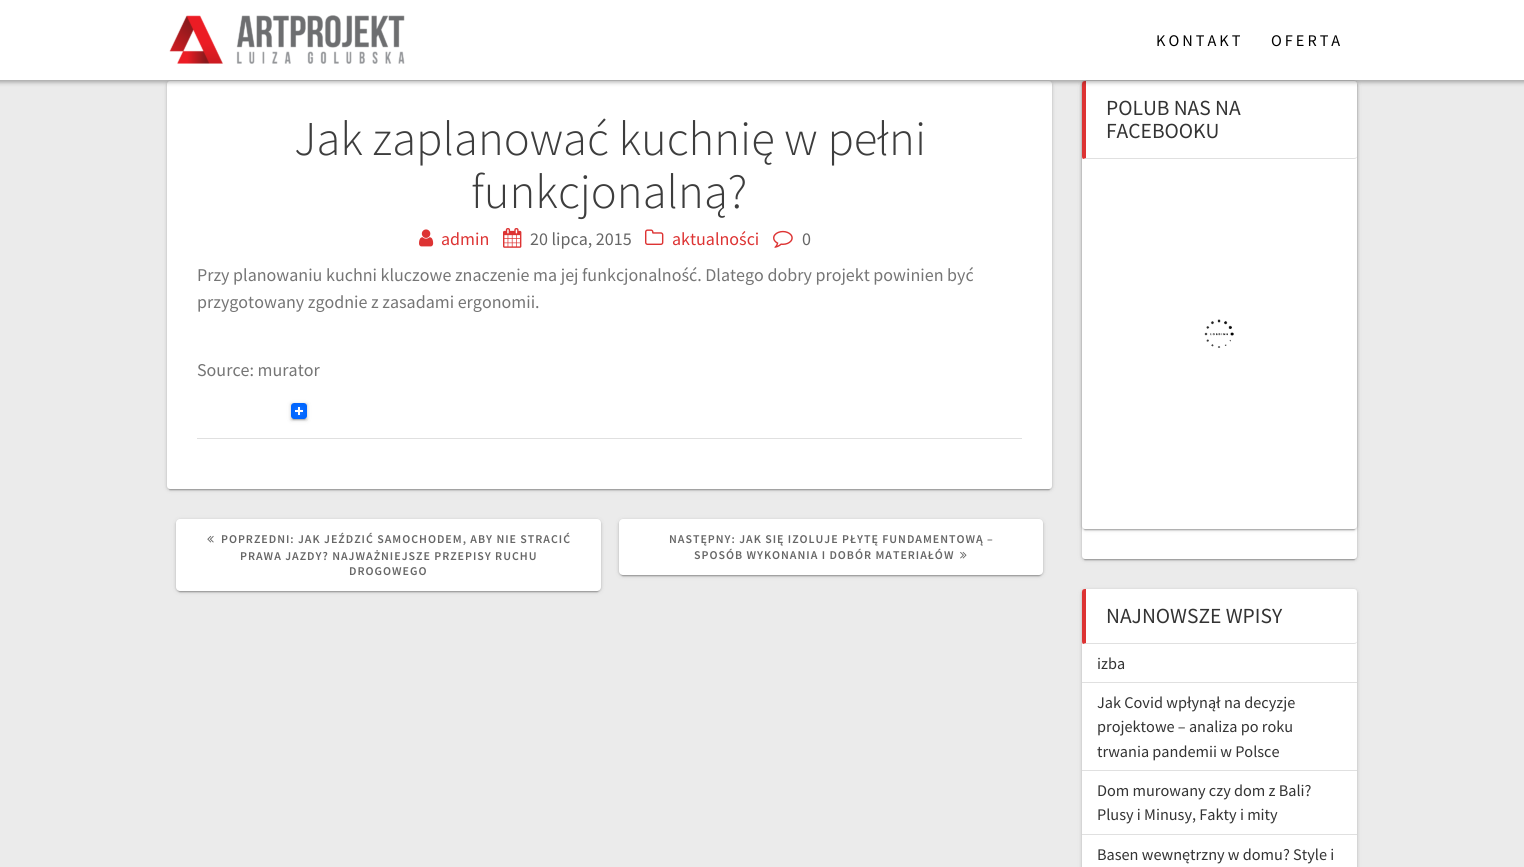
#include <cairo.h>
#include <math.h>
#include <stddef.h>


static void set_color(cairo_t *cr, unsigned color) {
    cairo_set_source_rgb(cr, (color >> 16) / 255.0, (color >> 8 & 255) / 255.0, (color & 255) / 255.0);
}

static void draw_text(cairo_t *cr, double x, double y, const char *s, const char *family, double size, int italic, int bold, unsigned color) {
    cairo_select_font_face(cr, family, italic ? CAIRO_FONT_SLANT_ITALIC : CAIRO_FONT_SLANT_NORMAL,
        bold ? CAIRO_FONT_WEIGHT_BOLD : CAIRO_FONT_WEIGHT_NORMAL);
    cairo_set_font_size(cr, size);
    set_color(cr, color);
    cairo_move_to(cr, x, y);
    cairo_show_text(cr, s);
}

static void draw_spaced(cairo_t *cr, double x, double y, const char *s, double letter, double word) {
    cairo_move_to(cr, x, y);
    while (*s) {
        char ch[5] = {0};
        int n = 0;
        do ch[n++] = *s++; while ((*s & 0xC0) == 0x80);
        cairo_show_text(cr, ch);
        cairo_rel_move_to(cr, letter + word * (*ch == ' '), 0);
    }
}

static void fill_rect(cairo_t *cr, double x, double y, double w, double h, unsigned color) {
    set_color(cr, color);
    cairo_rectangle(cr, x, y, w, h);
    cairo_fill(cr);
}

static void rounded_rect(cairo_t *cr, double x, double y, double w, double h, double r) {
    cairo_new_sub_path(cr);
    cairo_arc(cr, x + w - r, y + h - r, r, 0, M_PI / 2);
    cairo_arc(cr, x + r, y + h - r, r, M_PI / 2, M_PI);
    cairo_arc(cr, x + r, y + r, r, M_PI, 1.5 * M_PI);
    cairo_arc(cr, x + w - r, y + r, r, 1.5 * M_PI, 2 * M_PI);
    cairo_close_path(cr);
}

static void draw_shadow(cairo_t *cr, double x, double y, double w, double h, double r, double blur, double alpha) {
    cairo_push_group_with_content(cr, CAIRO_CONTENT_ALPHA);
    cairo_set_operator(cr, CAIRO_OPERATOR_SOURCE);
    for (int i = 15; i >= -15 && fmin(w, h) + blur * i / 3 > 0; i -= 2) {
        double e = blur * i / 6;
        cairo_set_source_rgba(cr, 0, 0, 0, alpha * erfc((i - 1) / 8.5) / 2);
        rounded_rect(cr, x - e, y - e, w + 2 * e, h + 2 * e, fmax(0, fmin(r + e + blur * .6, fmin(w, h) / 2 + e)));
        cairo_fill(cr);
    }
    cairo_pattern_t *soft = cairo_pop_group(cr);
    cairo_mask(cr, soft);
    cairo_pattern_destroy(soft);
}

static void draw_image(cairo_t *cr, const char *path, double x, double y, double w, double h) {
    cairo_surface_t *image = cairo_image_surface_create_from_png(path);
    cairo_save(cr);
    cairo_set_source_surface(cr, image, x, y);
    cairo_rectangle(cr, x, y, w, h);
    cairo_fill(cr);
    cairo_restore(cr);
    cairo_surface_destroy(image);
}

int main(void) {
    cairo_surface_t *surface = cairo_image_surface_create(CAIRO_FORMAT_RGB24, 1524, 867);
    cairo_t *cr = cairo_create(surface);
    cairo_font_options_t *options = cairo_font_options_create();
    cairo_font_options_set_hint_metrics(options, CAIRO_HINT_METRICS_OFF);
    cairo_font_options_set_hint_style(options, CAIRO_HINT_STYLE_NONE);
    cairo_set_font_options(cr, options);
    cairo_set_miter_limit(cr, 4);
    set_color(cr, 0xEBEBEB);
    cairo_paint(cr);
    set_color(cr, 0x000000);
    draw_shadow(cr, 167, 82, 885, 408, 3, 2.5, 0.12);
    draw_shadow(cr, 169, 86, 881, 404, 1, 0.5, 0.2);
    draw_shadow(cr, 167, 82, 885, 408, 3, 1, 0.14);
    set_color(cr, 0xFFFFFF);
    rounded_rect(cr, 167, 81, 885, 408, 3);
    cairo_fill(cr);
    set_color(cr, 0x000000);
    draw_shadow(cr, 1082, 82, 275, 478, 3, 2.5, 0.12);
    draw_shadow(cr, 1084, 86, 271, 474, 1, 0.5, 0.2);
    draw_shadow(cr, 1082, 82, 275, 478, 3, 1, 0.14);
    set_color(cr, 0xFFFFFF);
    rounded_rect(cr, 1082, 81, 275, 478, 3);
    cairo_fill(cr);
    set_color(cr, 0x000000);
    draw_shadow(cr, 1082, 82, 275, 448, 3, 2.5, 0.12);
    draw_shadow(cr, 1084, 86, 271, 444, 1, 0.5, 0.2);
    draw_shadow(cr, 1082, 82, 275, 448, 3, 1, 0.14);
    set_color(cr, 0xFFFFFF);
    rounded_rect(cr, 1082, 81, 275, 448, 3);
    cairo_fill(cr);
    set_color(cr, 0xE0E0E0);
    cairo_new_path(cr);
    cairo_move_to(cr, 1085, 159);
    cairo_line_to(cr, 1354, 159);
    cairo_curve_to(cr, 1356, 159, 1357, 158, 1357, 156);
    cairo_curve_to(cr, 1357, 157, 1356, 158, 1354, 158);
    cairo_line_to(cr, 1086, 158);
    cairo_line_to(cr, 1083, 159);
    cairo_close_path(cr);
    cairo_fill(cr);
    set_color(cr, 0xDD3333);
    cairo_new_path(cr);
    cairo_move_to(cr, 1085, 81);
    cairo_line_to(cr, 1086, 81);
    cairo_line_to(cr, 1086, 158);
    cairo_line_to(cr, 1083, 159);
    cairo_curve_to(cr, 1082, 158, 1082, 157, 1082, 156);
    cairo_line_to(cr, 1082, 84);
    cairo_curve_to(cr, 1082, 82, 1083, 81, 1085, 81);
    cairo_close_path(cr);
    cairo_fill(cr);
    set_color(cr, 0x000000);
    draw_shadow(cr, -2, -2, 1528, 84, 0, 2.5, 0.33);
    fill_rect(cr, 0, 0, 1524, 80, 0xFFFFFF);
    draw_image(cr, "assets/img1.png", 169, 15, 236, 49);
    cairo_select_font_face(cr, "Source Sans Pro", CAIRO_FONT_SLANT_NORMAL, CAIRO_FONT_WEIGHT_NORMAL);
    cairo_set_font_size(cr, 16.25);
    set_color(cr, 0x000000);
    draw_spaced(cr, 1156, 46, "KONTAKT", 3, 0);
    draw_spaced(cr, 1271, 46, "OFERTA", 3, 0);
    draw_text(cr, 294, 155, "Jak zaplanować kuchnię w pełni", "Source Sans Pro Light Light", 48.6, 0, 0, 0x3D3D3D);
    draw_text(cr, 471, 208, "funkcjonalną?", "Source Sans Pro Light Light", 48.6, 0, 0, 0x3D3D3D);
    draw_image(cr, "assets/img2.png", 419, 229, 15, 18);
    draw_text(cr, 441, 245, "admin", "Source Sans Pro", 18, 0, 0, 0xDD3333);
    draw_image(cr, "assets/img3.png", 503, 228, 19, 20);
    draw_text(cr, 530, 245, "20 lipca, 2015", "Source Sans Pro", 18, 0, 0, 0x666666);
    draw_image(cr, "assets/img4.png", 645, 229, 19, 16);
    draw_text(cr, 672, 245, "aktualności", "Source Sans Pro", 18, 0, 0, 0xDD3333);
    draw_image(cr, "assets/img5.png", 773, 230, 20, 18);
    draw_text(cr, 802, 245, "0", "Source Sans Pro", 18, 0, 0, 0x666666);
    fill_rect(cr, 197, 438, 825, 1, 0xE0E0E0);
    draw_text(cr, 197, 281, "Przy planowaniu kuchni kluczowe znaczenie ma jej funkcjonalność. Dlatego dobry projekt powinien być", "Source Sans Pro", 18, 0, 0, 0x757575);
    draw_text(cr, 197, 308, "przygotowany zgodnie z zasadami ergonomii.", "Source Sans Pro", 18, 0, 0, 0x757575);
    draw_text(cr, 197, 376, "Source: murator", "Source Sans Pro", 18, 0, 0, 0x757575);
    set_color(cr, 0x000000);
    draw_shadow(cr, 291, 404, 16, 16, 0, 2.5, 0.12);
    draw_shadow(cr, 293, 408, 12, 12, 0, 0.5, 0.2);
    draw_shadow(cr, 291, 404, 16, 16, 0, 1, 0.14);
    draw_image(cr, "assets/img6.png", 291, 403, 16, 16);
    draw_shadow(cr, 176, 520, 425, 72, 4, 2.5, 0.12);
    draw_shadow(cr, 178, 524, 421, 68, 2, 0.5, 0.2);
    draw_shadow(cr, 176, 520, 425, 72, 4, 1, 0.14);
    set_color(cr, 0xFFFFFF);
    rounded_rect(cr, 176, 519, 425, 72, 4);
    cairo_fill(cr);
    draw_image(cr, "assets/img7.png", 207, 535, 7, 8);
    cairo_select_font_face(cr, "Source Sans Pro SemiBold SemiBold", CAIRO_FONT_SLANT_NORMAL, CAIRO_FONT_WEIGHT_NORMAL);
    cairo_set_font_size(cr, 11.9);
    set_color(cr, 0x666666);
    draw_spaced(cr, 221, 543, "POPRZEDNI: JAK JEŹDZIĆ SAMOCHODEM, ABY NIE STRACIĆ", 1, 0);
    draw_spaced(cr, 240, 560, "PRAWA JAZDY? NAJWAŻNIEJSZE PRZEPISY RUCHU", 1, 0);
    draw_spaced(cr, 349, 575, "DROGOWEGO", 1, 0);
    set_color(cr, 0x000000);
    draw_shadow(cr, 619, 520, 424, 56, 4, 2.5, 0.12);
    draw_shadow(cr, 621, 524, 420, 52, 2, 0.5, 0.2);
    draw_shadow(cr, 619, 520, 424, 56, 4, 1, 0.14);
    set_color(cr, 0xFFFFFF);
    rounded_rect(cr, 619, 519, 424, 56, 4);
    cairo_fill(cr);
    set_color(cr, 0x666666);
    draw_spaced(cr, 669, 543, "NASTĘPNY: JAK SIĘ IZOLUJE PŁYTĘ FUNDAMENTOWĄ –", 1, 0);
    draw_spaced(cr, 694, 559, "SPOSÓB WYKONANIA I DOBÓR MATERIAŁÓW", 1, 0);
    draw_image(cr, "assets/img8.png", 960, 551, 7, 8);
    draw_text(cr, 1106, 115, "POLUB NAS NA", "Source Sans Pro", 21.5, 0, 0, 0x333333);
    draw_text(cr, 1106, 138, "FACEBOOKU", "Source Sans Pro", 21.5, 0, 0, 0x333333);
    draw_image(cr, "assets/img9.png", 1204, 319, 30, 29);
    set_color(cr, 0x000000);
    draw_shadow(cr, 1082, 590, 275, 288, 3, 2.5, 0.12);
    draw_shadow(cr, 1082, 590, 275, 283, 3, 1, 0.14);
    set_color(cr, 0xFFFFFF);
    rounded_rect(cr, 1082, 589, 275, 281, 3);
    cairo_fill(cr);
    set_color(cr, 0xE0E0E0);
    cairo_new_path(cr);
    cairo_move_to(cr, 1085, 644);
    cairo_line_to(cr, 1354, 644);
    cairo_curve_to(cr, 1356, 644, 1357, 643, 1357, 641);
    cairo_curve_to(cr, 1357, 642, 1356, 643, 1354, 643);
    cairo_line_to(cr, 1086, 643);
    cairo_line_to(cr, 1083, 644);
    cairo_close_path(cr);
    cairo_fill(cr);
    set_color(cr, 0xDD3333);
    cairo_new_path(cr);
    cairo_move_to(cr, 1085, 589);
    cairo_line_to(cr, 1086, 589);
    cairo_line_to(cr, 1086, 643);
    cairo_line_to(cr, 1083, 644);
    cairo_curve_to(cr, 1082, 643, 1082, 642, 1082, 641);
    cairo_line_to(cr, 1082, 592);
    cairo_curve_to(cr, 1082, 590, 1083, 589, 1085, 589);
    cairo_close_path(cr);
    cairo_fill(cr);
    draw_text(cr, 1106, 623, "NAJNOWSZE WPISY", "Source Sans Pro", 21.5, 0, 0, 0x333333);
    fill_rect(cr, 1082, 682, 275, 1, 0xE0E0E0);
    draw_text(cr, 1097, 669, "izba", "Source Sans Pro", 16.25, 0, 0, 0x333333);
    fill_rect(cr, 1082, 770, 275, 1, 0xE0E0E0);
    draw_text(cr, 1097, 708, "Jak Covid wpłynął na decyzje", "Source Sans Pro", 16.25, 0, 0, 0x333333);
    draw_text(cr, 1097, 732, "projektowe – analiza po roku", "Source Sans Pro", 16.25, 0, 0, 0x333333);
    draw_text(cr, 1097, 757, "trwania pandemii w Polsce", "Source Sans Pro", 16.25, 0, 0, 0x333333);
    fill_rect(cr, 1082, 834, 275, 1, 0xE0E0E0);
    draw_text(cr, 1097, 796, "Dom murowany czy dom z Bali?", "Source Sans Pro", 16.25, 0, 0, 0x333333);
    draw_text(cr, 1097, 820, "Plusy i Minusy, Fakty i mity", "Source Sans Pro", 16.25, 0, 0, 0x333333);
    draw_text(cr, 1097, 860, "Basen wewnętrzny w domu? Style i", "Source Sans Pro", 16.25, 0, 0, 0x333333);
    cairo_surface_write_to_png(surface, "output.png");
    cairo_font_options_destroy(options);
    cairo_destroy(cr);
    cairo_surface_destroy(surface);
    return 0;
}
